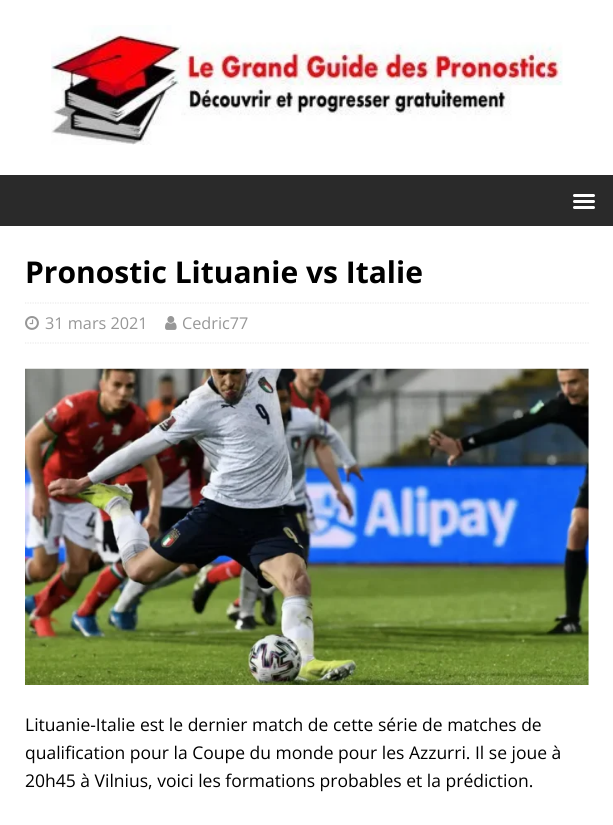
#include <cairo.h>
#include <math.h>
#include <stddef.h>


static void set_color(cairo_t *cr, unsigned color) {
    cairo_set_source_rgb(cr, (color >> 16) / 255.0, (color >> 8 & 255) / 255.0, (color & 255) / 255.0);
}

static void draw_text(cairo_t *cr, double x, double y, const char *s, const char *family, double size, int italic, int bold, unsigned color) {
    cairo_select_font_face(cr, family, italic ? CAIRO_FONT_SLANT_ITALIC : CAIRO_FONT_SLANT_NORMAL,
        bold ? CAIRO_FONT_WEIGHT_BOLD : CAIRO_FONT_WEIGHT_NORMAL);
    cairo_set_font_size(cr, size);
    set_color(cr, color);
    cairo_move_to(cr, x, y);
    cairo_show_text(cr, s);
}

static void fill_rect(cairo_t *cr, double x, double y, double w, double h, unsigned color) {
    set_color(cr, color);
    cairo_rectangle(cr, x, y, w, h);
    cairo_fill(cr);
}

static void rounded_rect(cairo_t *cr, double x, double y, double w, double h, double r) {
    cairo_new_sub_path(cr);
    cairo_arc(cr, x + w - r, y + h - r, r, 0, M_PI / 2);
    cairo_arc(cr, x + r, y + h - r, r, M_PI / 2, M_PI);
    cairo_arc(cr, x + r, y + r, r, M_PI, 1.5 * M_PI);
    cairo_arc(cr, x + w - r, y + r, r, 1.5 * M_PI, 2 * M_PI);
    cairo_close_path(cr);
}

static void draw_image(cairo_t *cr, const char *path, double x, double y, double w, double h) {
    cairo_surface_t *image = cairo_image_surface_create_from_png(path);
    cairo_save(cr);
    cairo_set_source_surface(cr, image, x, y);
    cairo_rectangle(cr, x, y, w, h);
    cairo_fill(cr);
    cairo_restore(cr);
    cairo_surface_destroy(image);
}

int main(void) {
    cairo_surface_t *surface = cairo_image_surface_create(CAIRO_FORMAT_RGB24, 613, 825);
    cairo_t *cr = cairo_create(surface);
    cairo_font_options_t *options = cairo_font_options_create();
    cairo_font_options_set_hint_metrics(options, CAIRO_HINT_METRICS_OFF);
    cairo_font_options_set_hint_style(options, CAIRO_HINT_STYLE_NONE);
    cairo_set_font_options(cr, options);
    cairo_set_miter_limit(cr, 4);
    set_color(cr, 0xFFFFFF);
    cairo_paint(cr);
    draw_image(cr, "assets/img1.png", 51, 25, 512, 120);
    fill_rect(cr, 0, 175, 613, 51, 0x2A2A2A);
    set_color(cr, 0xFFFFFF);
    rounded_rect(cr, 573, 194, 22, 3, 1.5);
    cairo_fill(cr);
    rounded_rect(cr, 573, 200, 22, 3, 1.5);
    cairo_fill(cr);
    rounded_rect(cr, 573, 206, 22, 3, 1.5);
    cairo_fill(cr);
    draw_text(cr, 25, 283, "Pronostic Lituanie vs Italie", "Open Sans", 30, 0, 1, 0x000000);
    cairo_new_path(cr);
    cairo_move_to(cr, 25, 303);
    cairo_line_to(cr, 589, 303);
    set_color(cr, 0xEBEBEB);
    cairo_set_line_width(cr, 1.2);
    cairo_set_dash(cr, (double[]){1.25, 1.25}, 2, 0);
    cairo_stroke(cr);
    cairo_new_path(cr);
    cairo_move_to(cr, 25, 343);
    cairo_line_to(cr, 589, 343);
    cairo_stroke(cr);
    draw_image(cr, "assets/img2.png", 25, 316, 14, 14);
    draw_text(cr, 45, 329, "31 mars 2021", "Open Sans", 16.25, 0, 0, 0x979797);
    draw_image(cr, "assets/img3.png", 165, 316, 12, 14);
    draw_text(cr, 182, 329, "Cedric77", "Open Sans", 16.25, 0, 0, 0x979797);
    draw_image(cr, "assets/img4.png", 25, 368, 564, 317);
    draw_text(cr, 25, 731, "Lituanie-Italie est le dernier match de cette série de matches de", "Open Sans", 17.5, 0, 0, 0x000000);
    draw_text(cr, 25, 759, "qualification pour la Coupe du monde pour les Azzurri. Il se joue à", "Open Sans", 17.5, 0, 0, 0x000000);
    draw_text(cr, 25, 787, "20h45 à Vilnius, voici les formations probables et la prédiction.", "Open Sans", 17.5, 0, 0, 0x000000);
    cairo_surface_write_to_png(surface, "output.png");
    cairo_font_options_destroy(options);
    cairo_destroy(cr);
    cairo_surface_destroy(surface);
    return 0;
}
